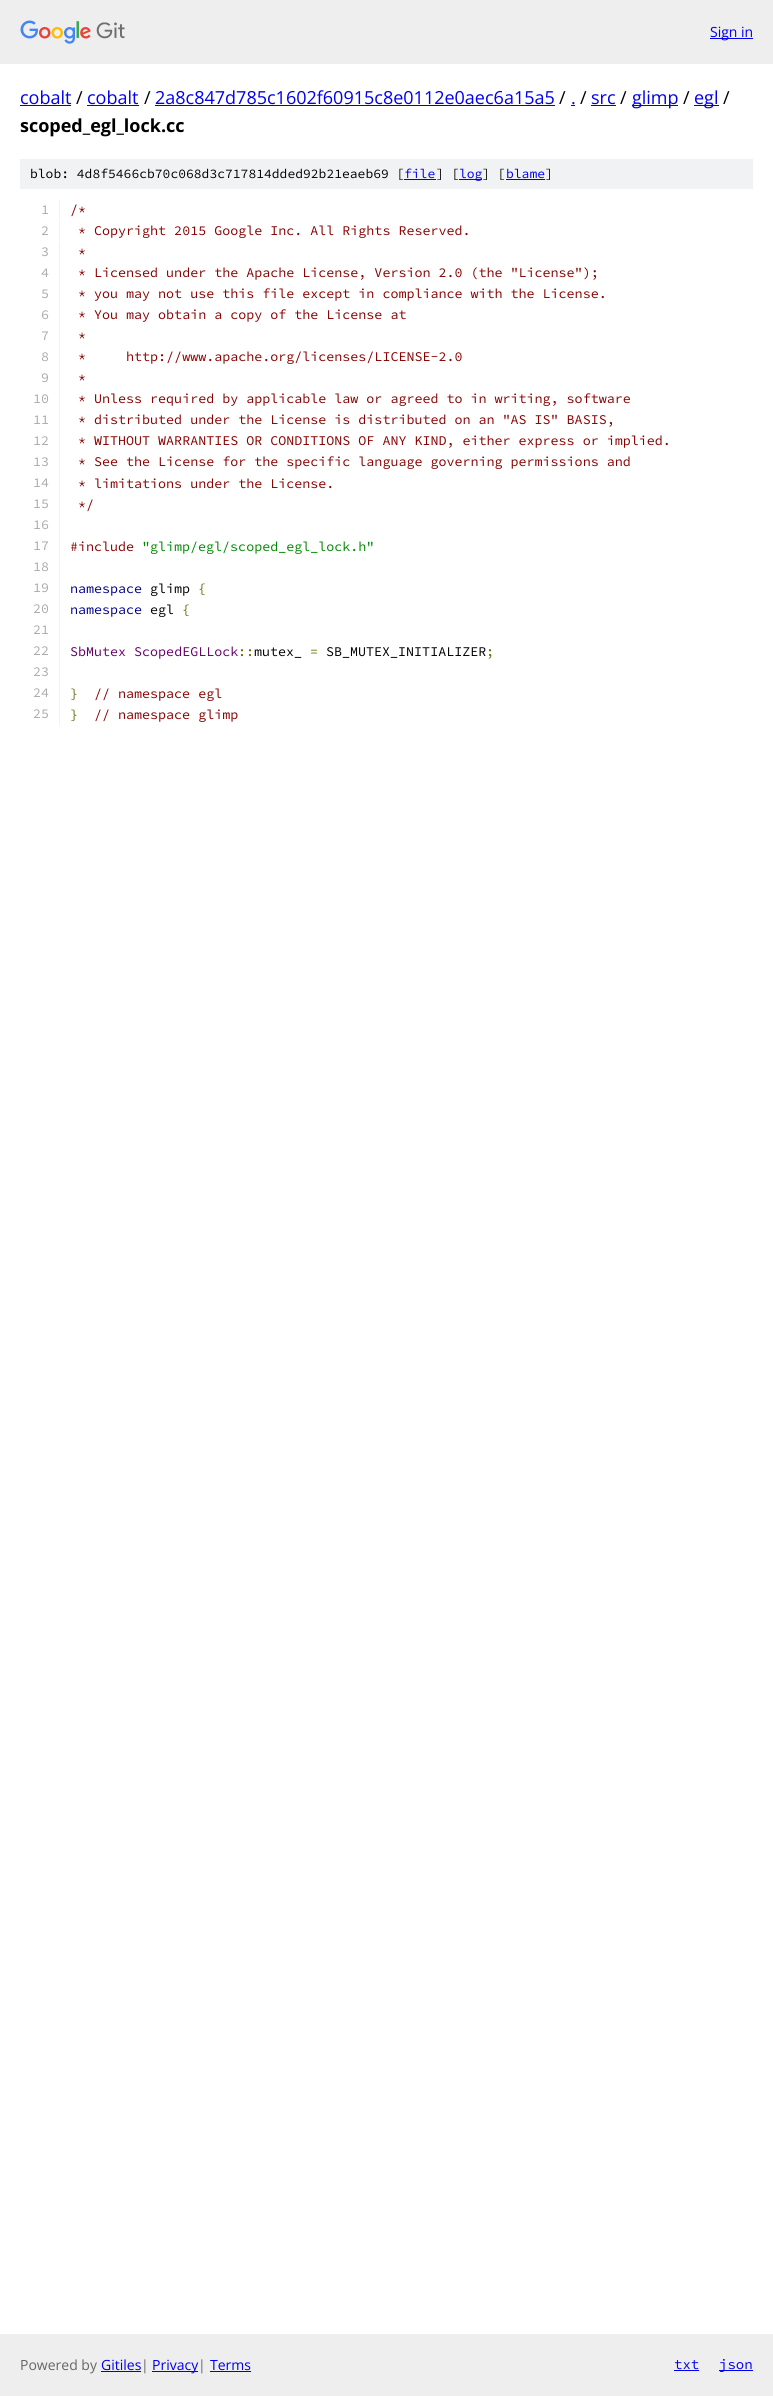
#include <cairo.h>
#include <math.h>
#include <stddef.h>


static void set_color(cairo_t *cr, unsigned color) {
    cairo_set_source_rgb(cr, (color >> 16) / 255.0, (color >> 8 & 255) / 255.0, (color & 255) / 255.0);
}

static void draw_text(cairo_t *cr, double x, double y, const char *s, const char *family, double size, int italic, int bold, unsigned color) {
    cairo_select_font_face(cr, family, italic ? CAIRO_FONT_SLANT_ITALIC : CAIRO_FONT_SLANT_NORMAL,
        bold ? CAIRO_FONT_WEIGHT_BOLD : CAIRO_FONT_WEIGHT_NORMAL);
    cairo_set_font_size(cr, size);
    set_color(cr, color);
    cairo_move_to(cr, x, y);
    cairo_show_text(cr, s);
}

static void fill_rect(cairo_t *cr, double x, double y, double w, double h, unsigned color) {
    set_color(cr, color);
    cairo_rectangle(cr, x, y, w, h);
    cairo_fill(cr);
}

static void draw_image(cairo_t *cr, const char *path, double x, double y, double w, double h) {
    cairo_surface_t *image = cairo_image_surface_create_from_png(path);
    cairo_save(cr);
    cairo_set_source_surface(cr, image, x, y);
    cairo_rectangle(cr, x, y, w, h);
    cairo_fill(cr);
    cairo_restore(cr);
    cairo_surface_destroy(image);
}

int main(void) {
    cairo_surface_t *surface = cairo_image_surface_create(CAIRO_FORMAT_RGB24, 773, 2396);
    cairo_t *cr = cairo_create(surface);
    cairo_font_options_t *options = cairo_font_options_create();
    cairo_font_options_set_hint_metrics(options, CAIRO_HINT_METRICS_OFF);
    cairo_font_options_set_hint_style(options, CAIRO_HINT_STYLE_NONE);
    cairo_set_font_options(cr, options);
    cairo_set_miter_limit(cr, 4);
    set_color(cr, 0xFFFFFF);
    cairo_paint(cr);
    fill_rect(cr, 0, 0, 773, 64, 0xEEEEEE);
    draw_image(cr, "assets/img1.png", 20, 20, 105, 24);
    fill_rect(cr, 710, 38, 43, 1, 0x0000EE);
    draw_text(cr, 710, 37, "Sign in", "Open Sans", 14, 0, 0, 0x0000EE);
    draw_text(cr, 20, 104, "cobalt", "Open Sans", 18, 0, 0, 0x0000EE);
    fill_rect(cr, 20, 105, 51, 1, 0x0000EE);
    draw_text(cr, 76, 104, "/", "Open Sans", 18, 0, 0, 0x000000);
    draw_text(cr, 87, 104, "cobalt", "Open Sans", 18, 0, 0, 0x0000EE);
    fill_rect(cr, 87, 105, 52, 1, 0x0000EE);
    draw_text(cr, 144, 104, "/", "Open Sans", 18, 0, 0, 0x000000);
    draw_text(cr, 155, 104, "2a8c847d785c1602f60915c8e0112e0aec6a15a5", "Open Sans", 18, 0, 0, 0x0000EE);
    fill_rect(cr, 155, 105, 400, 1, 0x0000EE);
    draw_text(cr, 559, 104, "/", "Open Sans", 18, 0, 0, 0x000000);
    draw_text(cr, 571, 104, ".", "Open Sans", 18, 0, 0, 0x0000EE);
    fill_rect(cr, 571, 105, 4, 1, 0x0000EE);
    draw_text(cr, 580, 104, "/", "Open Sans", 18, 0, 0, 0x000000);
    draw_text(cr, 591, 104, "src", "Open Sans", 18, 0, 0, 0x0000EE);
    fill_rect(cr, 591, 105, 25, 1, 0x0000EE);
    draw_text(cr, 620, 104, "/", "Open Sans", 18, 0, 0, 0x000000);
    fill_rect(cr, 632, 105, 46, 1, 0x0000EE);
    draw_text(cr, 632, 104, "glimp", "Open Sans", 18, 0, 0, 0x0000EE);
    draw_text(cr, 683, 104, "/", "Open Sans", 18, 0, 0, 0x000000);
    fill_rect(cr, 694, 105, 25, 1, 0x0000EE);
    draw_text(cr, 694, 104, "egl", "Open Sans", 18, 0, 0, 0x0000EE);
    draw_text(cr, 723, 104, "/", "Open Sans", 18, 0, 0, 0x000000);
    draw_text(cr, 20, 132, "scoped_egl_lock.cc", "Open Sans", 18, 0, 1, 0x000000);
    fill_rect(cr, 20, 159, 733, 30, 0xF1F2F3);
    draw_text(cr, 30, 178, "blob: 4d8f5466cb70c068d3c717814dded92b21eaeb69 [", "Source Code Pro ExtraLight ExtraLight", 13, 0, 0, 0x000000);
    draw_text(cr, 404, 178, "file", "Source Code Pro ExtraLight ExtraLight", 13, 0, 0, 0x0000EE);
    fill_rect(cr, 404, 179, 32, 1, 0x0000EE);
    draw_text(cr, 436, 178, "] [", "Source Code Pro ExtraLight ExtraLight", 13, 0, 0, 0x000000);
    fill_rect(cr, 459, 179, 23, 1, 0x0000EE);
    draw_text(cr, 459, 178, "log", "Source Code Pro ExtraLight ExtraLight", 13, 0, 0, 0x0000EE);
    draw_text(cr, 482, 178, "] [", "Source Code Pro ExtraLight ExtraLight", 13, 0, 0, 0x000000);
    draw_text(cr, 506, 178, "blame", "Source Code Pro ExtraLight ExtraLight", 13, 0, 0, 0x0000EE);
    fill_rect(cr, 506, 179, 39, 1, 0x0000EE);
    draw_text(cr, 545, 178, "]", "Source Code Pro ExtraLight ExtraLight", 13, 0, 0, 0x000000);
    fill_rect(cr, 59, 200, 1, 20, 0xF1F2F3);
    draw_text(cr, 41, 214, "1", "Source Code Pro ExtraLight ExtraLight", 13.35, 0, 0, 0xAAAAAA);
    draw_text(cr, 70, 214, "/*", "Source Code Pro ExtraLight ExtraLight", 13.35, 0, 0, 0x880000);
    fill_rect(cr, 59, 221, 1, 20, 0xF1F2F3);
    draw_text(cr, 41, 235, "2", "Source Code Pro ExtraLight ExtraLight", 13.35, 0, 0, 0xAAAAAA);
    draw_text(cr, 78, 235, "* Copyright 2015 Google Inc. All Rights Reserved.", "Source Code Pro ExtraLight ExtraLight", 13.35, 0, 0, 0x880000);
    fill_rect(cr, 59, 242, 1, 483, 0xF1F2F3);
    draw_text(cr, 41, 256, "3", "Source Code Pro ExtraLight ExtraLight", 13.35, 0, 0, 0xAAAAAA);
    draw_text(cr, 78, 256, "*", "Source Code Pro ExtraLight ExtraLight", 13.35, 0, 0, 0x880000);
    draw_text(cr, 41, 277, "4", "Source Code Pro ExtraLight ExtraLight", 13.35, 0, 0, 0xAAAAAA);
    draw_text(cr, 78, 277, "* Licensed under the Apache License, Version 2.0 (the \"License\");", "Source Code Pro ExtraLight ExtraLight", 13.35, 0, 0, 0x880000);
    draw_text(cr, 41, 298, "5", "Source Code Pro ExtraLight ExtraLight", 13.35, 0, 0, 0xAAAAAA);
    draw_text(cr, 78, 298, "* you may not use this file except in compliance with the License.", "Source Code Pro ExtraLight ExtraLight", 13.35, 0, 0, 0x880000);
    draw_text(cr, 41, 319, "6", "Source Code Pro ExtraLight ExtraLight", 13.35, 0, 0, 0xAAAAAA);
    draw_text(cr, 78, 319, "* You may obtain a copy of the License at", "Source Code Pro ExtraLight ExtraLight", 13.35, 0, 0, 0x880000);
    draw_text(cr, 41, 340, "7", "Source Code Pro ExtraLight ExtraLight", 13.35, 0, 0, 0xAAAAAA);
    draw_text(cr, 78, 340, "*", "Source Code Pro ExtraLight ExtraLight", 13.35, 0, 0, 0x880000);
    draw_text(cr, 41, 361, "8", "Source Code Pro ExtraLight ExtraLight", 13.35, 0, 0, 0xAAAAAA);
    draw_text(cr, 78, 361, "*     http://www.apache.org/licenses/LICENSE-2.0", "Source Code Pro ExtraLight ExtraLight", 13.35, 0, 0, 0x880000);
    draw_text(cr, 41, 382, "9", "Source Code Pro ExtraLight ExtraLight", 13.35, 0, 0, 0xAAAAAA);
    draw_text(cr, 78, 382, "*", "Source Code Pro ExtraLight ExtraLight", 13.35, 0, 0, 0x880000);
    draw_text(cr, 33, 403, "10", "Source Code Pro ExtraLight ExtraLight", 13.35, 0, 0, 0xAAAAAA);
    draw_text(cr, 78, 403, "* Unless required by applicable law or agreed to in writing, software", "Source Code Pro ExtraLight ExtraLight", 13.35, 0, 0, 0x880000);
    draw_text(cr, 33, 424, "11", "Source Code Pro ExtraLight ExtraLight", 13.35, 0, 0, 0xAAAAAA);
    draw_text(cr, 78, 424, "* distributed under the License is distributed on an \"AS IS\" BASIS,", "Source Code Pro ExtraLight ExtraLight", 13.35, 0, 0, 0x880000);
    draw_text(cr, 33, 445, "12", "Source Code Pro ExtraLight ExtraLight", 13.35, 0, 0, 0xAAAAAA);
    draw_text(cr, 78, 445, "* WITHOUT WARRANTIES OR CONDITIONS OF ANY KIND, either express or implied.", "Source Code Pro ExtraLight ExtraLight", 13.35, 0, 0, 0x880000);
    draw_text(cr, 33, 466, "13", "Source Code Pro ExtraLight ExtraLight", 13.35, 0, 0, 0xAAAAAA);
    draw_text(cr, 78, 466, "* See the License for the specific language governing permissions and", "Source Code Pro ExtraLight ExtraLight", 13.35, 0, 0, 0x880000);
    draw_text(cr, 33, 487, "14", "Source Code Pro ExtraLight ExtraLight", 13.35, 0, 0, 0xAAAAAA);
    draw_text(cr, 78, 488, "* limitations under the License.", "Source Code Pro ExtraLight ExtraLight", 13.35, 0, 0, 0x880000);
    draw_text(cr, 33, 508, "15", "Source Code Pro ExtraLight ExtraLight", 13.35, 0, 0, 0xAAAAAA);
    draw_text(cr, 78, 509, "*/", "Source Code Pro ExtraLight ExtraLight", 13.35, 0, 0, 0x880000);
    draw_text(cr, 33, 529, "16", "Source Code Pro ExtraLight ExtraLight", 13.35, 0, 0, 0xAAAAAA);
    draw_text(cr, 33, 550, "17", "Source Code Pro ExtraLight ExtraLight", 13.35, 0, 0, 0xAAAAAA);
    draw_text(cr, 70, 551, "#include", "Source Code Pro ExtraLight ExtraLight", 13.35, 0, 0, 0x880000);
    draw_text(cr, 142, 551, "\"glimp/egl/scoped_egl_lock.h\"", "Source Code Pro ExtraLight ExtraLight", 13.35, 0, 0, 0x008800);
    draw_text(cr, 33, 571, "18", "Source Code Pro ExtraLight ExtraLight", 13.35, 0, 0, 0xAAAAAA);
    draw_text(cr, 33, 592, "19", "Source Code Pro ExtraLight ExtraLight", 13.35, 0, 0, 0xAAAAAA);
    draw_text(cr, 70, 593, "namespace", "Source Code Pro ExtraLight ExtraLight", 13.35, 0, 0, 0x000088);
    draw_text(cr, 150, 593, "glimp", "Source Code Pro ExtraLight ExtraLight", 13.35, 0, 0, 0x000000);
    draw_text(cr, 198, 593, "{", "Source Code Pro ExtraLight ExtraLight", 13.35, 0, 0, 0x666600);
    draw_text(cr, 33, 613, "20", "Source Code Pro ExtraLight ExtraLight", 13.35, 0, 0, 0xAAAAAA);
    draw_text(cr, 70, 614, "namespace", "Source Code Pro ExtraLight ExtraLight", 13.35, 0, 0, 0x000088);
    draw_text(cr, 150, 614, "egl", "Source Code Pro ExtraLight ExtraLight", 13.35, 0, 0, 0x000000);
    draw_text(cr, 182, 614, "{", "Source Code Pro ExtraLight ExtraLight", 13.35, 0, 0, 0x666600);
    draw_text(cr, 33, 634, "21", "Source Code Pro ExtraLight ExtraLight", 13.35, 0, 0, 0xAAAAAA);
    draw_text(cr, 33, 655, "22", "Source Code Pro ExtraLight ExtraLight", 13.35, 0, 0, 0xAAAAAA);
    draw_text(cr, 70, 656, "SbMutex ScopedEGLLock", "Source Code Pro ExtraLight ExtraLight", 13.35, 0, 0, 0x660066);
    draw_text(cr, 238, 656, "::", "Source Code Pro ExtraLight ExtraLight", 13.35, 0, 0, 0x666600);
    draw_text(cr, 254, 656, "mutex_", "Source Code Pro ExtraLight ExtraLight", 13.35, 0, 0, 0x000000);
    draw_text(cr, 310, 656, "=", "Source Code Pro ExtraLight ExtraLight", 13.35, 0, 0, 0x666600);
    draw_text(cr, 326, 656, "SB_MUTEX_INITIALIZER", "Source Code Pro ExtraLight ExtraLight", 13.35, 0, 0, 0x000000);
    draw_text(cr, 486, 656, ";", "Source Code Pro ExtraLight ExtraLight", 13.35, 0, 0, 0x666600);
    draw_text(cr, 33, 676, "23", "Source Code Pro ExtraLight ExtraLight", 13.35, 0, 0, 0xAAAAAA);
    draw_text(cr, 33, 697, "24", "Source Code Pro ExtraLight ExtraLight", 13.35, 0, 0, 0xAAAAAA);
    draw_text(cr, 70, 698, "}", "Source Code Pro ExtraLight ExtraLight", 13.35, 0, 0, 0x666600);
    draw_text(cr, 94, 698, "// namespace egl", "Source Code Pro ExtraLight ExtraLight", 13.35, 0, 0, 0x880000);
    draw_text(cr, 33, 718, "25", "Source Code Pro ExtraLight ExtraLight", 13.35, 0, 0, 0xAAAAAA);
    draw_text(cr, 70, 719, "}", "Source Code Pro ExtraLight ExtraLight", 13.35, 0, 0, 0x666600);
    draw_text(cr, 94, 719, "// namespace glimp", "Source Code Pro ExtraLight ExtraLight", 13.35, 0, 0, 0x880000);
    fill_rect(cr, 0, 2334, 773, 62, 0xEEEEEE);
    draw_text(cr, 20, 2370, "Powered by", "Open Sans", 14, 0, 0, 0x666666);
    draw_text(cr, 101, 2370, "Gitiles", "Open Sans", 14, 0, 0, 0x0000EE);
    fill_rect(cr, 101, 2371, 40, 1, 0x0000EE);
    draw_text(cr, 141, 2370, "|", "Open Sans", 14, 0, 0, 0x666666);
    fill_rect(cr, 152, 2371, 46, 1, 0x0000EE);
    draw_text(cr, 152, 2370, "Privacy", "Open Sans", 14, 0, 0, 0x0000EE);
    draw_text(cr, 198, 2370, "|", "Open Sans", 14, 0, 0, 0x666666);
    draw_text(cr, 210, 2370, "Terms", "Open Sans", 14, 0, 0, 0x0000EE);
    fill_rect(cr, 210, 2371, 41, 1, 0x0000EE);
    draw_text(cr, 674, 2369, "txt", "Source Code Pro ExtraLight ExtraLight", 14, 0, 0, 0x0000EE);
    fill_rect(cr, 674, 2370, 25, 1, 0x0000EE);
    fill_rect(cr, 719, 2370, 34, 1, 0x0000EE);
    draw_text(cr, 719, 2369, "json", "Source Code Pro ExtraLight ExtraLight", 14, 0, 0, 0x0000EE);
    cairo_surface_write_to_png(surface, "output.png");
    cairo_font_options_destroy(options);
    cairo_destroy(cr);
    cairo_surface_destroy(surface);
    return 0;
}
